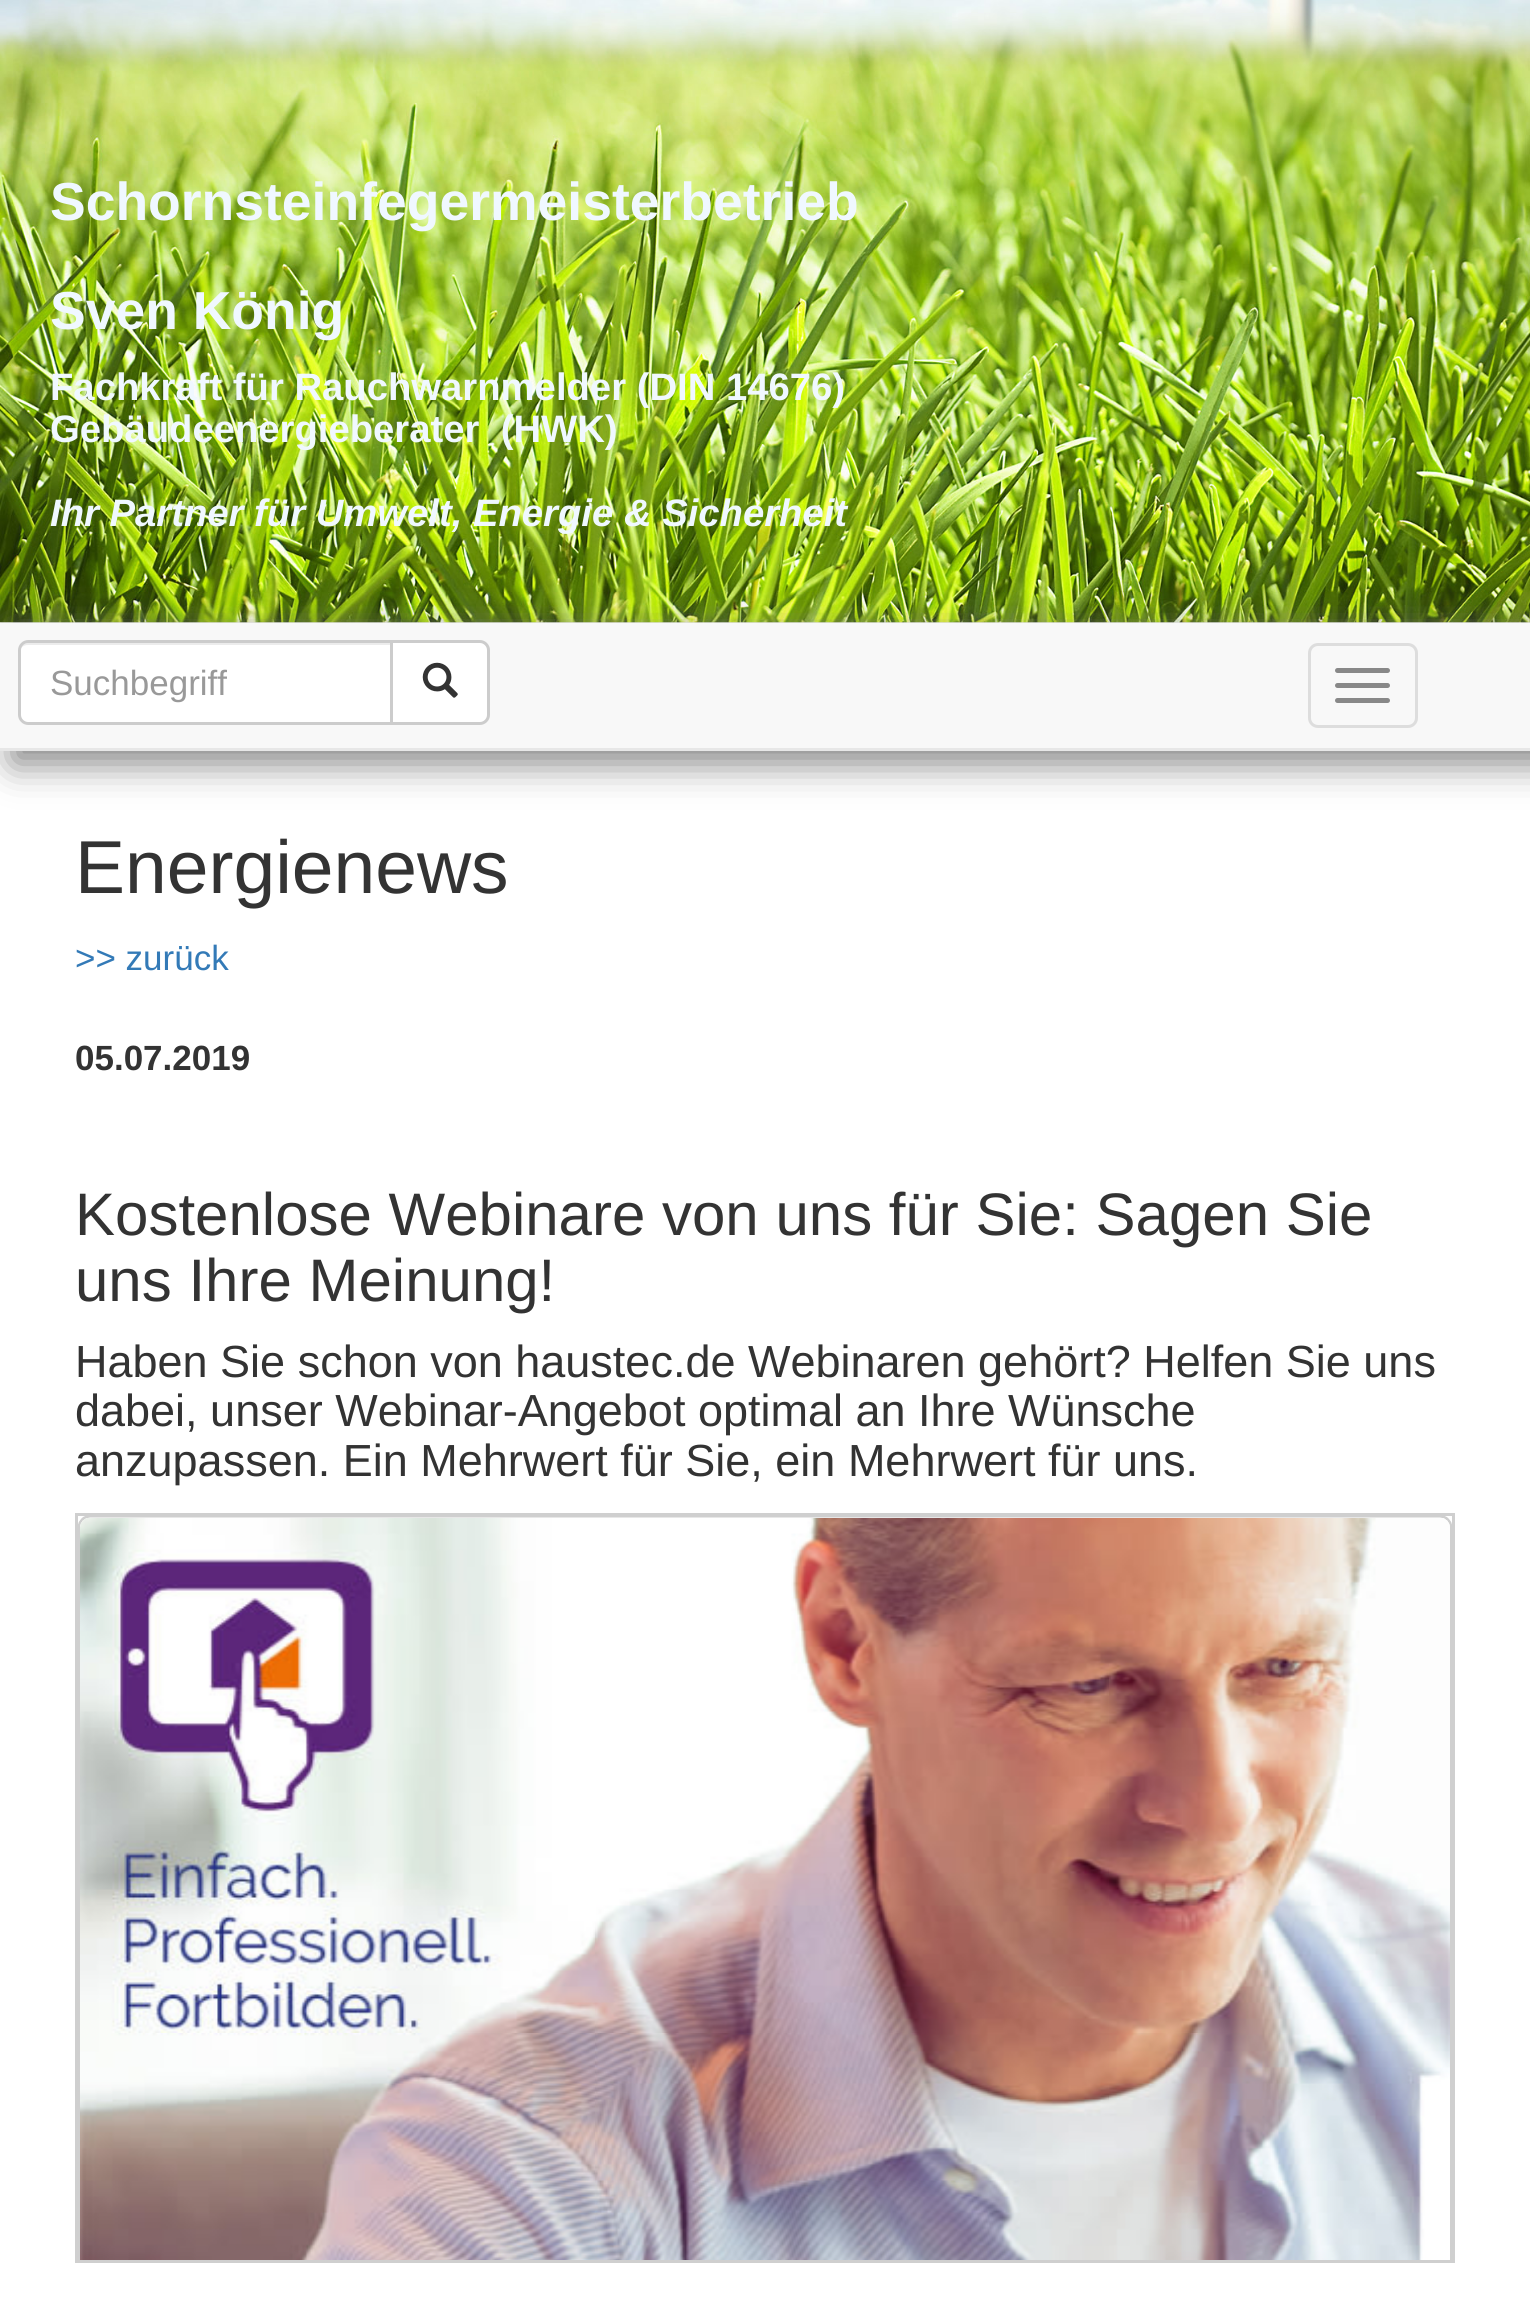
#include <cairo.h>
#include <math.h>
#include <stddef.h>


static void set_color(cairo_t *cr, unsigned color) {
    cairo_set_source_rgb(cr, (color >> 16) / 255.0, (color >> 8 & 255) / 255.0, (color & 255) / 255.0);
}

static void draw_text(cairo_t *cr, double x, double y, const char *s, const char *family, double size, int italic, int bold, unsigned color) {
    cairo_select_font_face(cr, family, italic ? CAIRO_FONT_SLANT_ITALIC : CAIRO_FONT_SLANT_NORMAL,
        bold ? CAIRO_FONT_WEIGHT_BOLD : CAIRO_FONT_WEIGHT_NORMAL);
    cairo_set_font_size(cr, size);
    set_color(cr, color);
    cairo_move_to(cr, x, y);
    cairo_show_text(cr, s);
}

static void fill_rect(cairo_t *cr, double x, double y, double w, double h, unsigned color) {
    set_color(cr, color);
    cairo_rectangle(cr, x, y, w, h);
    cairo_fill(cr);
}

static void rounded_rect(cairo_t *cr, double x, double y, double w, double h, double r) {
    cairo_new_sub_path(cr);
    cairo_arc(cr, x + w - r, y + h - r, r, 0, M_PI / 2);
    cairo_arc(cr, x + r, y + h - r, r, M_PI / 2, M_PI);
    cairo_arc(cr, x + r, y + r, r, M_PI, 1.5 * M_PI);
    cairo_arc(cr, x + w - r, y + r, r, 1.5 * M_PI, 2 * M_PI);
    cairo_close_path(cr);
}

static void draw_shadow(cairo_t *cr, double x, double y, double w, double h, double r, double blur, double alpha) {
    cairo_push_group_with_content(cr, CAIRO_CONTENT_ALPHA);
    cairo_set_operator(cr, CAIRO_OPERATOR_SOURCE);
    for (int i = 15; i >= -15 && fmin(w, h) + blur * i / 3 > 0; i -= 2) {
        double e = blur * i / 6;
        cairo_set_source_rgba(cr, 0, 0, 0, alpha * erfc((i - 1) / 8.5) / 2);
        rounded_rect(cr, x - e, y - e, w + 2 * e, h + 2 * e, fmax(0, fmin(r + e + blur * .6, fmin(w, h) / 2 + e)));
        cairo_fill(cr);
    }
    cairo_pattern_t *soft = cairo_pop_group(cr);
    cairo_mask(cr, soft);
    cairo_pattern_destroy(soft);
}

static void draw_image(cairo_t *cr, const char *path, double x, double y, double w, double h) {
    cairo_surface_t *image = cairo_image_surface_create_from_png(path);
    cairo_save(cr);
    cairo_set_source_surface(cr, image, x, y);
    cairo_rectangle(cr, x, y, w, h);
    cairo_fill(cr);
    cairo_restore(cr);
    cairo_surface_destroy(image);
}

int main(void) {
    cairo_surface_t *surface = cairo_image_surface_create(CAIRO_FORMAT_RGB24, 1530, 2322);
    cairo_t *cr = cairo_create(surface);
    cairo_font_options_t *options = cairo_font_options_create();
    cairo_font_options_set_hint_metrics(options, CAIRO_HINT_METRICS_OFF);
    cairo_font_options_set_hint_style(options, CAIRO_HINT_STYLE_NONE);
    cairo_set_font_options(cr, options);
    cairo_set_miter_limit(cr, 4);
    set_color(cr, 0xFFFFFF);
    cairo_paint(cr);
    draw_image(cr, "assets/img1.png", 0, 0, 1530, 623);
    draw_text(cr, 50, 220, "Schornsteinfegermeisterbetrieb", "Liberation Sans", 53.5, 0, 1, 0xF0F8FF);
    draw_text(cr, 50, 329, "Sven König", "Liberation Sans", 53.5, 0, 1, 0xF0F8FF);
    draw_text(cr, 50, 400, "Fachkraft für Rauchwarnmelder (DIN 14676)", "Liberation Sans", 38.25, 0, 1, 0xF0F8FF);
    draw_text(cr, 50, 442, "Gebäudeenergieberater  (HWK)", "Liberation Sans", 38.25, 0, 1, 0xF0F8FF);
    draw_text(cr, 50, 526, "Ihr Partner für Umwelt, Energie & Sicherheit", "Liberation Sans", 38.25, 1, 1, 0xF0F8FF);
    set_color(cr, 0x808080);
    draw_shadow(cr, 13, 635, 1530, 128, 0, 19, 1);
    fill_rect(cr, 0, 623, 1530, 125, 0xF8F8F8);
    fill_rect(cr, 0, 748, 1530, 3, 0xE7E7E7);
    set_color(cr, 0xFFFFFF);
    cairo_new_path(cr);
    cairo_move_to(cr, 28, 640);
    cairo_line_to(cr, 393, 640);
    cairo_line_to(cr, 393, 725);
    cairo_line_to(cr, 28, 725);
    cairo_curve_to(cr, 22.5, 725, 18, 720.5, 18, 715);
    cairo_line_to(cr, 18, 650);
    cairo_curve_to(cr, 18, 644.5, 22.5, 640, 28, 640);
    cairo_close_path(cr);
    cairo_fill(cr);
    set_color(cr, 0xECECEC);
    cairo_new_path(cr);
    cairo_move_to(cr, 28, 645);
    cairo_line_to(cr, 390, 645);
    cairo_line_to(cr, 390, 643);
    cairo_line_to(cr, 28, 643);
    cairo_curve_to(cr, 23, 643, 20, 647, 20, 652);
    cairo_curve_to(cr, 20, 648, 23, 645, 28, 645);
    cairo_close_path(cr);
    cairo_fill(cr);
    cairo_new_path(cr);
    cairo_move_to(cr, 28, 641.5);
    cairo_line_to(cr, 391.5, 641.5);
    cairo_line_to(cr, 391.5, 723.5);
    cairo_line_to(cr, 28, 723.5);
    cairo_curve_to(cr, 23.5, 723.5, 19.5, 719.5, 19.5, 715);
    cairo_line_to(cr, 19.5, 650);
    cairo_curve_to(cr, 19.5, 645.5, 23.5, 641.5, 28, 641.5);
    cairo_close_path(cr);
    set_color(cr, 0xCCCCCC);
    cairo_set_line_width(cr, 3);
    cairo_stroke(cr);
    draw_text(cr, 50, 695, "Suchbegriff", "Liberation Sans", 35, 0, 0, 0x999999);
    set_color(cr, 0xFFFFFF);
    cairo_new_path(cr);
    cairo_move_to(cr, 391.5, 641.5);
    cairo_line_to(cr, 480, 641.5);
    cairo_curve_to(cr, 484.5, 641.5, 488.5, 645.5, 488.5, 650);
    cairo_line_to(cr, 488.5, 715);
    cairo_curve_to(cr, 488.5, 719.5, 484.5, 723.5, 480, 723.5);
    cairo_line_to(cr, 391.5, 723.5);
    cairo_close_path(cr);
    cairo_fill_preserve(cr);
    set_color(cr, 0xCCCCCC);
    cairo_stroke(cr);
    draw_image(cr, "assets/img2.png", 422, 662, 36, 36);
    rounded_rect(cr, 1309.5, 644.5, 107, 82, 8.5);
    set_color(cr, 0xDDDDDD);
    cairo_stroke(cr);
    set_color(cr, 0x888888);
    rounded_rect(cr, 1335, 668, 55, 5, 2.5);
    cairo_fill(cr);
    rounded_rect(cr, 1335, 683, 55, 5, 2.5);
    cairo_fill(cr);
    rounded_rect(cr, 1335, 698, 55, 5, 2.5);
    cairo_fill(cr);
    draw_text(cr, 75, 893, "Energienews", "Liberation Sans", 75, 0, 0, 0x333333);
    draw_text(cr, 75, 970, ">> zurück", "Liberation Sans", 35, 0, 0, 0x337AB7);
    draw_text(cr, 75, 1070, "05.07.2019", "Liberation Sans", 35, 0, 1, 0x333333);
    draw_text(cr, 75, 1235, "Kostenlose Webinare von uns für Sie: Sagen Sie", "Liberation Sans", 60, 0, 0, 0x333333);
    draw_text(cr, 75, 1301, "uns Ihre Meinung!", "Liberation Sans", 60, 0, 0, 0x333333);
    draw_text(cr, 75, 1377, "Haben Sie schon von haustec.de Webinaren gehört? Helfen Sie uns", "Liberation Sans", 45, 0, 0, 0x333333);
    draw_text(cr, 75, 1426, "dabei, unser Webinar-Angebot optimal an Ihre Wünsche", "Liberation Sans", 45, 0, 0, 0x333333);
    draw_text(cr, 75, 1476, "anzupassen. Ein Mehrwert für Sie, ein Mehrwert für uns.", "Liberation Sans", 45, 0, 0, 0x333333);
    cairo_rectangle(cr, 76.5, 1514.5, 1377, 747);
    set_color(cr, 0xCFCFCF);
    cairo_stroke(cr);
    draw_image(cr, "assets/img3.png", 78, 1516, 1374, 744);
    cairo_surface_write_to_png(surface, "output.png");
    cairo_font_options_destroy(options);
    cairo_destroy(cr);
    cairo_surface_destroy(surface);
    return 0;
}
